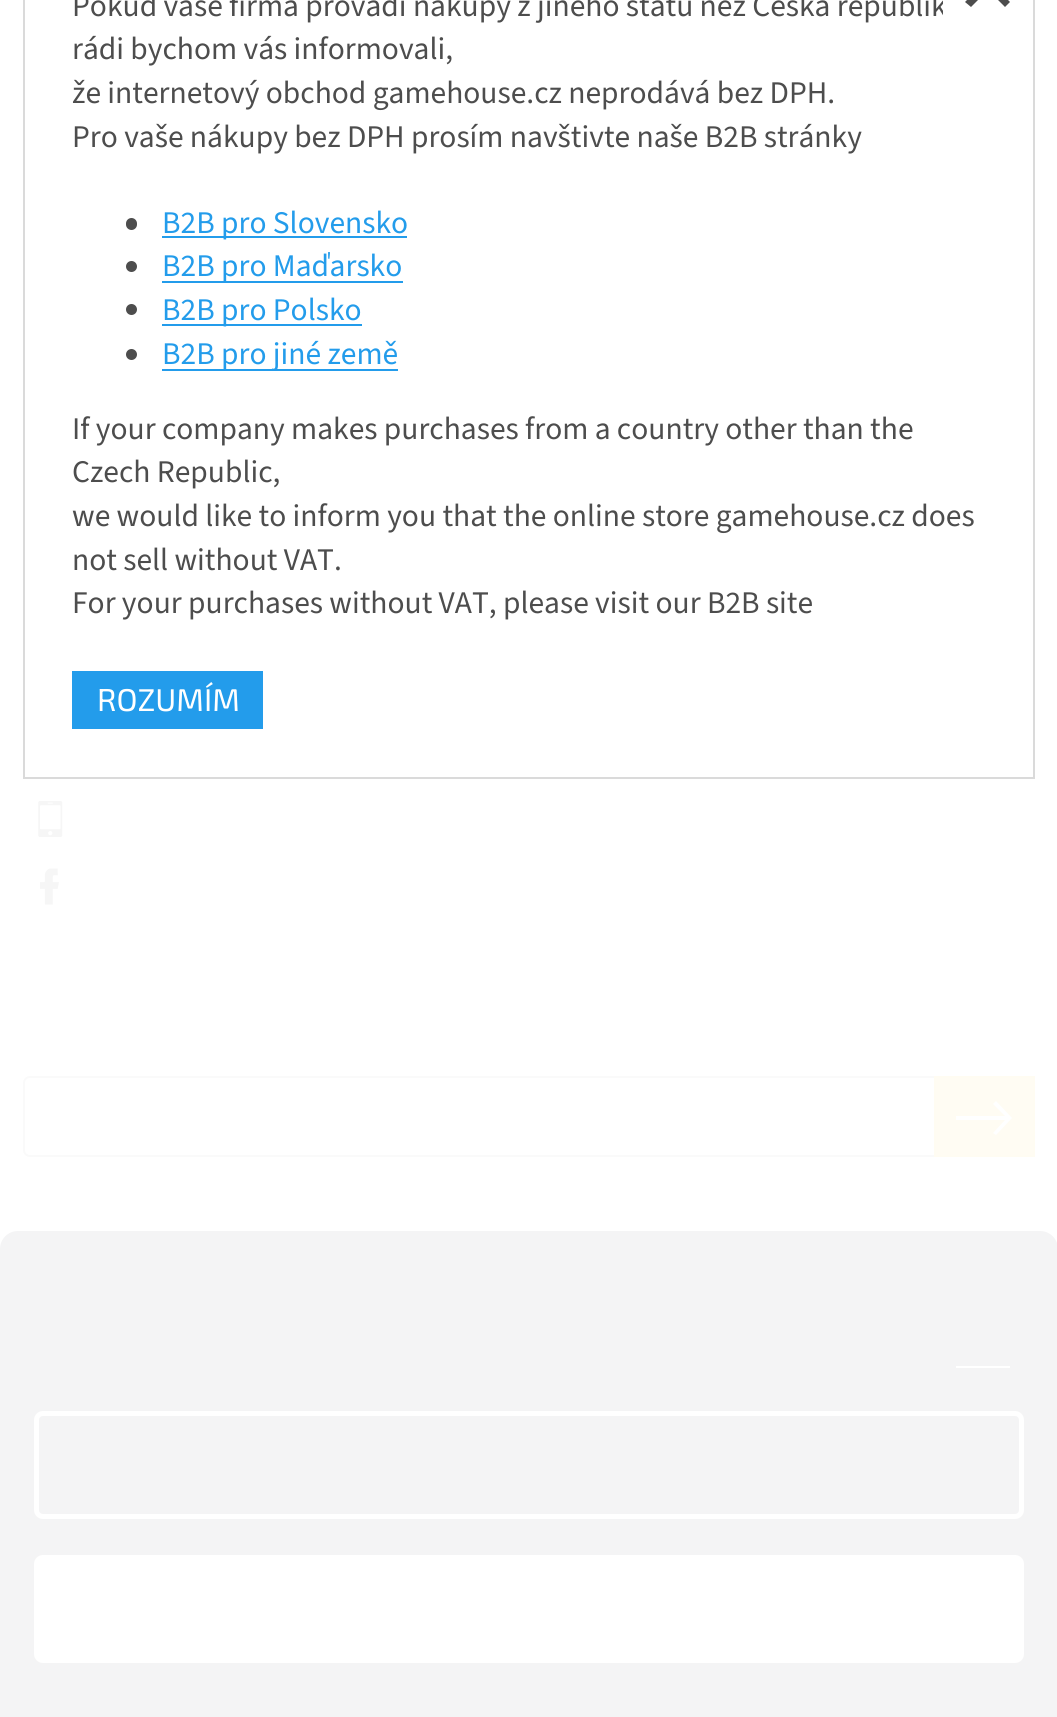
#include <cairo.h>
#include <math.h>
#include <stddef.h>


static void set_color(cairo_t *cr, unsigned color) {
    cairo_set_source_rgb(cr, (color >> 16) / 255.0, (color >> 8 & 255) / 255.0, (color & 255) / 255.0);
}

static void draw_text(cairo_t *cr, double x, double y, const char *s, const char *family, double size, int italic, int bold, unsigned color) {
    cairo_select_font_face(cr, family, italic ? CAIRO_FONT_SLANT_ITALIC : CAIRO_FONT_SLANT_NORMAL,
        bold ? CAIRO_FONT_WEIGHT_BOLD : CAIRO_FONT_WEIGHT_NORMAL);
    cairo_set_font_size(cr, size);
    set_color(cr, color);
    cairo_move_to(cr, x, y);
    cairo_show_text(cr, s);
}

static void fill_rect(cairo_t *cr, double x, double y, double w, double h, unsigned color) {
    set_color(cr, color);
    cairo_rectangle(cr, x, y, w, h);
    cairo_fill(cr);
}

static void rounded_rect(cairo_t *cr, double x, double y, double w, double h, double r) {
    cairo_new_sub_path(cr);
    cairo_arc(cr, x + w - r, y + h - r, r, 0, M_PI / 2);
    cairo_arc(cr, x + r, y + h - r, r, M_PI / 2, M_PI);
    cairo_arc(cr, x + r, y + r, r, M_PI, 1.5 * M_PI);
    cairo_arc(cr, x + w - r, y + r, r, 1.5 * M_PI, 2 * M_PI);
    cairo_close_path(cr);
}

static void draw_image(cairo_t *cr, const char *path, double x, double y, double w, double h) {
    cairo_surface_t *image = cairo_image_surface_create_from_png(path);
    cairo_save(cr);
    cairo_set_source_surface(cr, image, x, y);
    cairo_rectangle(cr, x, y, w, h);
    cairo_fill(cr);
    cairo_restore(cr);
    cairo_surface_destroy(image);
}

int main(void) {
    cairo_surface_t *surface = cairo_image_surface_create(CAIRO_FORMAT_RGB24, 1057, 1717);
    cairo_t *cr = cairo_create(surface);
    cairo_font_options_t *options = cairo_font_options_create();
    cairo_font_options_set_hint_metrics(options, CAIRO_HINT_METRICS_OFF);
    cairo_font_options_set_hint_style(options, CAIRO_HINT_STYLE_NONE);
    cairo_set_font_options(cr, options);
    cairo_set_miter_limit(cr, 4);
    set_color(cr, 0xFFFFFF);
    cairo_paint(cr);
    cairo_rectangle(cr, 24, -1, 1010, 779);
    set_color(cr, 0xDADADA);
    cairo_stroke(cr);
    draw_text(cr, 72, 16, "Pokud vaše firma provádí nákupy z jiného státu než Česká republik", "Source Sans 3", 31.5, 0, 0, 0x4D4D4D);
    draw_text(cr, 72, 59, "rádi bychom vás informovali,", "Source Sans 3", 31.5, 0, 0, 0x4D4D4D);
    draw_text(cr, 72, 103, "že internetový obchod gamehouse.cz neprodává bez DPH.", "Source Sans 3", 31.5, 0, 0, 0x4D4D4D);
    draw_text(cr, 72, 147, "Pro vaše nákupy bez DPH prosím navštivte naše B2B stránky", "Source Sans 3", 31.5, 0, 0, 0x4D4D4D);
    rounded_rect(cr, 126, 218, 11, 12, 5.5);
    cairo_fill(cr);
    fill_rect(cr, 162, 236, 245, 2, 0x239CEB);
    draw_text(cr, 162, 233, "B2B pro Slovensko", "Source Sans 3", 31.5, 0, 0, 0x239CEB);
    set_color(cr, 0x4D4D4D);
    cairo_new_path(cr);
    cairo_arc(cr, 131.5, 266.5, 5.5, 0, 2 * M_PI);
    cairo_fill(cr);
    fill_rect(cr, 162, 281, 241, 2, 0x239CEB);
    draw_text(cr, 162, 276, "B2B pro Maďarsko", "Source Sans 3", 31.5, 0, 0, 0x239CEB);
    set_color(cr, 0x4D4D4D);
    cairo_new_path(cr);
    cairo_arc(cr, 131.5, 309.5, 5.5, 0, 2 * M_PI);
    cairo_fill(cr);
    fill_rect(cr, 162, 324, 200, 2, 0x239CEB);
    draw_text(cr, 162, 320, "B2B pro Polsko", "Source Sans 3", 31.5, 0, 0, 0x239CEB);
    set_color(cr, 0x4D4D4D);
    cairo_new_path(cr);
    cairo_arc(cr, 131.5, 354.5, 5.5, 0, 2 * M_PI);
    cairo_fill(cr);
    fill_rect(cr, 162, 369, 236, 2, 0x239CEB);
    draw_text(cr, 162, 364, "B2B pro jiné země", "Source Sans 3", 31.5, 0, 0, 0x239CEB);
    draw_text(cr, 72, 439, "If your company makes purchases from a country other than the", "Source Sans 3", 31.5, 0, 0, 0x4D4D4D);
    draw_text(cr, 72, 482, "Czech Republic,", "Source Sans 3", 31.5, 0, 0, 0x4D4D4D);
    draw_text(cr, 72, 526, "we would like to inform you that the online store gamehouse.cz does", "Source Sans 3", 31.5, 0, 0, 0x4D4D4D);
    draw_text(cr, 72, 570, "not sell without VAT.", "Source Sans 3", 31.5, 0, 0, 0x4D4D4D);
    draw_text(cr, 72, 613, "For your purchases without VAT, please visit our B2B site", "Source Sans 3", 31.5, 0, 0, 0x4D4D4D);
    fill_rect(cr, 72, 671, 191, 58, 0x239CEB);
    draw_text(cr, 97, 711, "ROZUMÍM", "Exo 2", 31.5, 0, 0, 0xFFFFFF);
    fill_rect(cr, 943, 0, 4, 16, 0xFFFFFF);
    set_color(cr, 0x4D4D4D);
    cairo_new_path(cr);
    cairo_move_to(cr, 971, -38);
    cairo_line_to(cr, 965, -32);
    cairo_line_to(cr, 982, -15);
    cairo_line_to(cr, 965, 2);
    cairo_line_to(cr, 971, 7);
    cairo_line_to(cr, 988, -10);
    cairo_line_to(cr, 1005, 7);
    cairo_line_to(cr, 1010, 2);
    cairo_line_to(cr, 993, -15);
    cairo_line_to(cr, 1010, -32);
    cairo_line_to(cr, 1005, -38);
    cairo_line_to(cr, 988, -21);
    cairo_close_path(cr);
    cairo_fill(cr);
    draw_image(cr, "assets/img1.png", 38, 801, 25, 36);
    draw_image(cr, "assets/img2.png", 40, 868, 19, 37);
    rounded_rect(cr, 24, 1077, 1010, 79, 6);
    set_color(cr, 0xFAFAFA);
    cairo_stroke(cr);
    set_color(cr, 0xFFFCF3);
    cairo_rectangle(cr, 935, 1077, 99, 79);
    cairo_fill_preserve(cr);
    set_color(cr, 0xFFFCF2);
    cairo_stroke(cr);
    set_color(cr, 0xFFFFFF);
    cairo_new_path(cr);
    cairo_move_to(cr, 996, 1101);
    cairo_line_to(cr, 1012, 1118);
    cairo_line_to(cr, 996, 1135);
    cairo_line_to(cr, 993, 1133);
    cairo_line_to(cr, 1005, 1120);
    cairo_line_to(cr, 956, 1120);
    cairo_line_to(cr, 956, 1116);
    cairo_line_to(cr, 1005, 1116);
    cairo_line_to(cr, 993, 1104);
    cairo_close_path(cr);
    cairo_fill(cr);
    set_color(cr, 0xF4F4F5);
    cairo_new_path(cr);
    cairo_move_to(cr, 18, 1231);
    cairo_line_to(cr, 1040, 1231);
    cairo_curve_to(cr, 1050, 1231, 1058, 1239, 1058, 1249);
    cairo_line_to(cr, 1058, 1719);
    cairo_line_to(cr, 0, 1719);
    cairo_line_to(cr, 0, 1249);
    cairo_curve_to(cr, 0, 1239, 8, 1231, 18, 1231);
    cairo_close_path(cr);
    cairo_fill(cr);
    fill_rect(cr, 956, 1366, 54, 2, 0xFFFFFF);
    rounded_rect(cr, 36.5, 1413.5, 985, 103, 6.5);
    cairo_set_line_width(cr, 5);
    cairo_stroke(cr);
    rounded_rect(cr, 34, 1555, 990, 108, 9);
    cairo_fill(cr);
    cairo_surface_write_to_png(surface, "output.png");
    cairo_font_options_destroy(options);
    cairo_destroy(cr);
    cairo_surface_destroy(surface);
    return 0;
}
